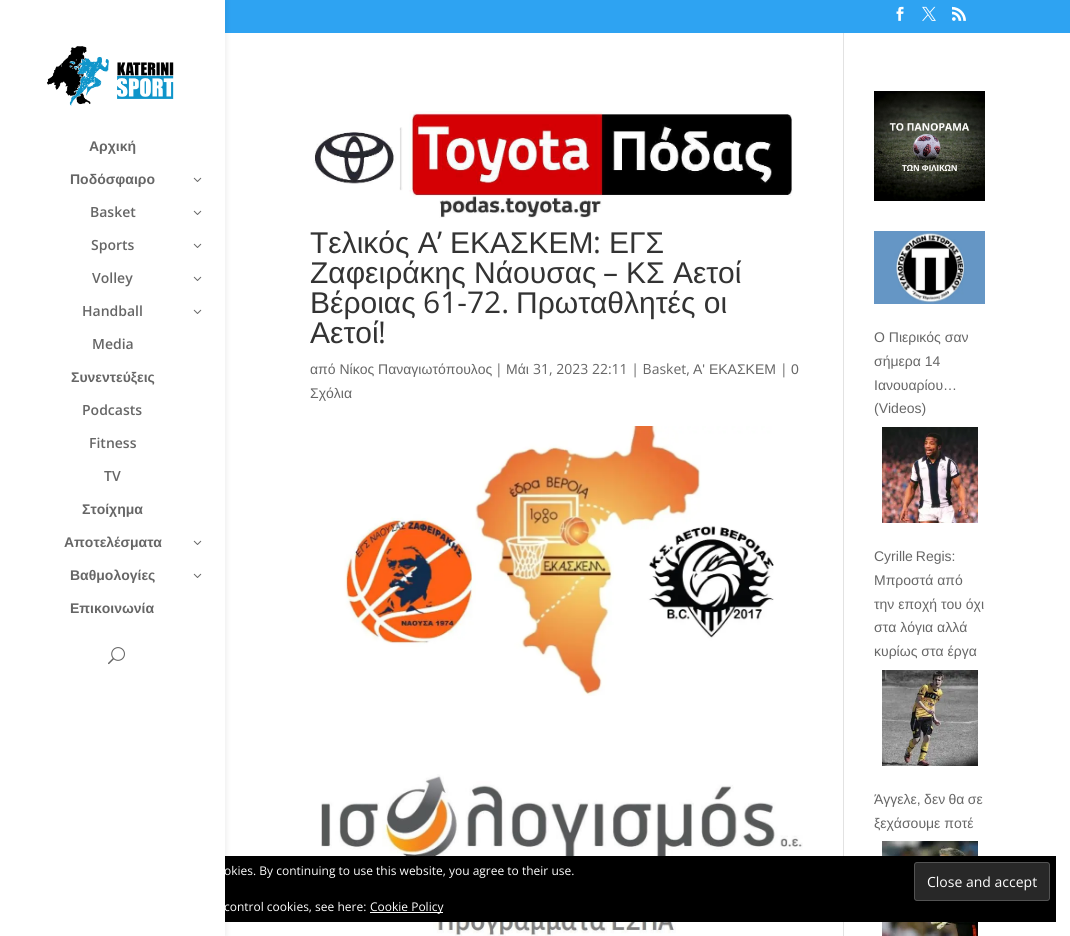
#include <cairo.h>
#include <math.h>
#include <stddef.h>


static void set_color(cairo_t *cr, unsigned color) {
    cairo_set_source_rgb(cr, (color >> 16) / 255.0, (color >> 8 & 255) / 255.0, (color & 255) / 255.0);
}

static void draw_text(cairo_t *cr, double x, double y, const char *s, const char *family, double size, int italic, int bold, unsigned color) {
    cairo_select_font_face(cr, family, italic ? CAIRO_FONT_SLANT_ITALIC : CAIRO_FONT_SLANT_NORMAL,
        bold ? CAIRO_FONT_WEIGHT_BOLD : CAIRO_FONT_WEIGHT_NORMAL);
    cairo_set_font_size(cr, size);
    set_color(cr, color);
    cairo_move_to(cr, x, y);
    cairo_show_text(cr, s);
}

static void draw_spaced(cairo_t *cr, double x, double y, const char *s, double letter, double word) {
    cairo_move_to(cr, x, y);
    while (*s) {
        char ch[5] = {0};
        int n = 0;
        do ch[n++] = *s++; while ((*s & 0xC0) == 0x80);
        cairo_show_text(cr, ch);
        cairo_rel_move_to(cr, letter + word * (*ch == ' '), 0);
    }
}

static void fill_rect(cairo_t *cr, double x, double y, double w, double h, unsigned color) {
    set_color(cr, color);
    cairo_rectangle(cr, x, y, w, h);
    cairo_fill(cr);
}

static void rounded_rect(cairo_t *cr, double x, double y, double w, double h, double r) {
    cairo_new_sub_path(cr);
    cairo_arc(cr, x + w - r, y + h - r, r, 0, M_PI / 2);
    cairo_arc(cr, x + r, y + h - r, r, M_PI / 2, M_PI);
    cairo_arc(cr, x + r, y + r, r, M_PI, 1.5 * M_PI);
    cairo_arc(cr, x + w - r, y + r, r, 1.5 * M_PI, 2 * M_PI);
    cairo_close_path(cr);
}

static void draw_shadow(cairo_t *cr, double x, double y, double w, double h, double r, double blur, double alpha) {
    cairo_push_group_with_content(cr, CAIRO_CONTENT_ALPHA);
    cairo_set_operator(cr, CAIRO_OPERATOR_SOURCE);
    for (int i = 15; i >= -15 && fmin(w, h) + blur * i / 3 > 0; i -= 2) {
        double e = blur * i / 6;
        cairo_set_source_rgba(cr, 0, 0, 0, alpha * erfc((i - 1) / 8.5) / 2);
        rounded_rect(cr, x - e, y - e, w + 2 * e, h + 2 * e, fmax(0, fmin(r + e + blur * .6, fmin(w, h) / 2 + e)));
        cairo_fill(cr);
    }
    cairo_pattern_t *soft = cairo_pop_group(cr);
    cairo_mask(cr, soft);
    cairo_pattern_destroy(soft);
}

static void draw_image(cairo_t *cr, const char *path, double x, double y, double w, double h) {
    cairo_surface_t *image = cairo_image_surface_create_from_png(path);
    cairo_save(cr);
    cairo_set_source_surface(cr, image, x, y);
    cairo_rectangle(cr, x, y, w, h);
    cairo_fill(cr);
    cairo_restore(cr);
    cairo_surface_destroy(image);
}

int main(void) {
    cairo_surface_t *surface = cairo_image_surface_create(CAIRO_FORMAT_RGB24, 1070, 936);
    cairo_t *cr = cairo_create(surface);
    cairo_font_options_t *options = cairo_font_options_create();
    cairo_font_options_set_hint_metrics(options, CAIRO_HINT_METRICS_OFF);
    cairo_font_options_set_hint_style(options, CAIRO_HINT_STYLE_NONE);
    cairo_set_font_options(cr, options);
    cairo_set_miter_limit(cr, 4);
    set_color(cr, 0xFFFFFF);
    cairo_paint(cr);
    fill_rect(cr, 225, 0, 845, 33, 0x2EA3F2);
    draw_image(cr, "assets/img1.png", 896, 6, 8, 15);
    draw_image(cr, "assets/img2.png", 922, 6, 14, 15);
    draw_image(cr, "assets/img3.png", 952, 6, 14, 15);
    fill_rect(cr, 843, 33, 1, 903, 0xE2E2E2);
    draw_image(cr, "assets/img9.png", 321, 774, 482, 162);
    draw_image(cr, "assets/img14.png", 882, 841, 96, 95);
    fill_rect(cr, 225, 856, 831, 66, 0x000000);
    set_color(cr, 0x000000);
    draw_shadow(cr, 0, 0, 225, 936, 0, 3.5, 0.1);
    fill_rect(cr, 0, 0, 225, 936, 0xFFFFFF);
    draw_image(cr, "assets/img4.png", 47, 46, 127, 60);
    draw_text(cr, 89, 151, "Αρχική", "Liberation Sans", 14, 0, 1, 0x666666);
    draw_text(cr, 70, 184, "Ποδόσφαιρο", "Liberation Sans", 14, 0, 1, 0x666666);
    draw_image(cr, "assets/img5.png", 193, 177, 9, 5);
    draw_text(cr, 90, 217, "Basket", "Open Sans SemiBold", 14, 0, 0, 0x666666);
    draw_image(cr, "assets/img5.png", 193, 210, 9, 5);
    draw_text(cr, 91, 250, "Sports", "Open Sans SemiBold", 14, 0, 0, 0x666666);
    draw_image(cr, "assets/img5.png", 193, 243, 9, 5);
    draw_text(cr, 92, 283, "Volley", "Open Sans SemiBold", 14, 0, 0, 0x666666);
    draw_image(cr, "assets/img5.png", 193, 276, 9, 5);
    draw_text(cr, 82, 316, "Handball", "Open Sans SemiBold", 14, 0, 0, 0x666666);
    draw_image(cr, "assets/img5.png", 193, 309, 9, 5);
    draw_text(cr, 92, 349, "Media", "Open Sans SemiBold", 14, 0, 0, 0x666666);
    draw_text(cr, 71, 382, "Συνεντεύξεις", "Liberation Sans", 14, 0, 1, 0x666666);
    draw_text(cr, 82, 415, "Podcasts", "Open Sans SemiBold", 14, 0, 0, 0x666666);
    draw_text(cr, 89, 448, "Fitness", "Open Sans SemiBold", 14, 0, 0, 0x666666);
    draw_text(cr, 104, 481, "TV", "Open Sans SemiBold", 14, 0, 0, 0x666666);
    draw_text(cr, 82, 514, "Στοίχημα", "Liberation Sans", 14, 0, 1, 0x666666);
    draw_text(cr, 64, 547, "Αποτελέσματα", "Liberation Sans", 14, 0, 1, 0x666666);
    draw_image(cr, "assets/img5.png", 193, 540, 9, 5);
    draw_text(cr, 70, 580, "Βαθμολογίες", "Liberation Sans", 14, 0, 1, 0x666666);
    draw_image(cr, "assets/img5.png", 193, 573, 9, 5);
    draw_text(cr, 70, 613, "Επικοινωνία", "Liberation Sans", 14, 0, 1, 0x666666);
    draw_image(cr, "assets/img6.png", 108, 647, 17, 18);
    draw_image(cr, "assets/img7.png", 313, 111, 480, 107);
    draw_text(cr, 310, 253, "Τελικός Α", "Liberation Sans", 30, 0, 0, 0x333333);
    draw_text(cr, 437, 253, "’", "Open Sans", 30, 0, 0, 0x333333);
    draw_text(cr, 450, 253, "ΕΚΑΣΚΕΜ", "Liberation Sans", 30, 0, 0, 0x333333);
    draw_text(cr, 593, 253, ":", "Open Sans", 30, 0, 0, 0x333333);
    draw_text(cr, 609, 253, "ΕΓΣ", "Liberation Sans", 30, 0, 0, 0x333333);
    draw_text(cr, 310, 283, "Ζαφειράκης Νάουσας", "Liberation Sans", 30, 0, 0, 0x333333);
    draw_text(cr, 603, 283, "–", "Open Sans", 30, 0, 0, 0x333333);
    draw_text(cr, 626, 283, "ΚΣ Αετοί", "Liberation Sans", 30, 0, 0, 0x333333);
    draw_text(cr, 310, 313, "Βέροιας", "Liberation Sans", 30, 0, 0, 0x333333);
    draw_text(cr, 423, 313, "61-72.", "Open Sans", 30, 0, 0, 0x333333);
    draw_text(cr, 516, 313, "Πρωταθλητές οι", "Liberation Sans", 30, 0, 0, 0x333333);
    draw_text(cr, 310, 343, "Αετοί", "Liberation Sans", 30, 0, 0, 0x333333);
    draw_text(cr, 378, 343, "!", "Open Sans", 30, 0, 0, 0x333333);
    draw_text(cr, 310, 374, "από Νίκος Παναγιωτόπουλος", "Liberation Sans", 14, 0, 0, 0x666666);
    draw_text(cr, 495, 374, "|", "Open Sans", 14, 0, 0, 0x666666);
    draw_text(cr, 506, 374, "Μάι", "Liberation Sans", 14, 0, 0, 0x666666);
    draw_text(cr, 533, 374, "31, 2023 22:11 | Basket,", "Open Sans", 14, 0, 0, 0x666666);
    draw_text(cr, 693, 374, "Α' ΕΚΑΣΚΕΜ", "Liberation Sans", 14, 0, 0, 0x666666);
    draw_text(cr, 780, 374, "|", "Open Sans", 14, 0, 0, 0x666666);
    draw_text(cr, 791, 374, "0", "Liberation Sans", 14, 0, 0, 0x666666);
    draw_text(cr, 310, 398, "Σχόλια", "Liberation Sans", 14, 0, 0, 0x666666);
    draw_image(cr, "assets/img8.png", 344, 426, 430, 270);
    draw_image(cr, "assets/img10.png", 874, 91, 111, 110);
    draw_image(cr, "assets/img11.png", 874, 231, 111, 73);
    draw_text(cr, 874, 342, "Ο Πιερικός σαν", "Liberation Sans", 14, 0, 0, 0x666666);
    draw_text(cr, 874, 366, "σήμερα 14", "Liberation Sans", 14, 0, 0, 0x666666);
    draw_text(cr, 874, 390, "Ιανουαρίου…", "Liberation Sans", 14, 0, 0, 0x666666);
    draw_text(cr, 874, 413, "(Videos)", "Liberation Sans", 14, 0, 0, 0x666666);
    draw_image(cr, "assets/img12.png", 882, 427, 96, 96);
    draw_spaced(cr, 874, 561, "Cyrille Regis:", 0, -1);
    draw_text(cr, 874, 585, "Μπροστά από", "Liberation Sans", 14, 0, 0, 0x666666);
    draw_text(cr, 874, 609, "την εποχή του όχι", "Liberation Sans", 14, 0, 0, 0x666666);
    draw_text(cr, 874, 632, "στα λόγια αλλά", "Liberation Sans", 14, 0, 0, 0x666666);
    draw_text(cr, 874, 656, "κυρίως στα έργα", "Liberation Sans", 14, 0, 0, 0x666666);
    draw_image(cr, "assets/img13.png", 882, 670, 96, 96);
    draw_spaced(cr, 874, 804, "Άγγελε, δεν θα σε", 0, -0.5);
    draw_text(cr, 874, 828, "ξεχάσουμε ποτέ", "Liberation Sans", 14, 0, 0, 0x666666);
    draw_text(cr, 224, 875, "okies. By continuing to use this website, you agree to their use.", "Open Sans", 12, 0, 0, 0xFFFFFF);
    set_color(cr, 0x282828);
    rounded_rect(cr, 914.5, 862.5, 135, 38, 2.5);
    cairo_fill_preserve(cr);
    set_color(cr, 0x535353);
    cairo_set_line_width(cr, 1);
    cairo_stroke(cr);
    draw_text(cr, 927, 887, "Close and accept", "Open Sans", 14, 0, 0, 0xFFFFFF);
    draw_text(cr, 224, 911, "control cookies, see here:", "Open Sans", 12, 0, 0, 0xFFFFFF);
    fill_rect(cr, 370, 912, 73, 1, 0xFFFFFF);
    draw_text(cr, 370, 911, "Cookie Policy", "Open Sans", 12, 0, 0, 0xFFFFFF);
    cairo_surface_write_to_png(surface, "output.png");
    cairo_font_options_destroy(options);
    cairo_destroy(cr);
    cairo_surface_destroy(surface);
    return 0;
}
